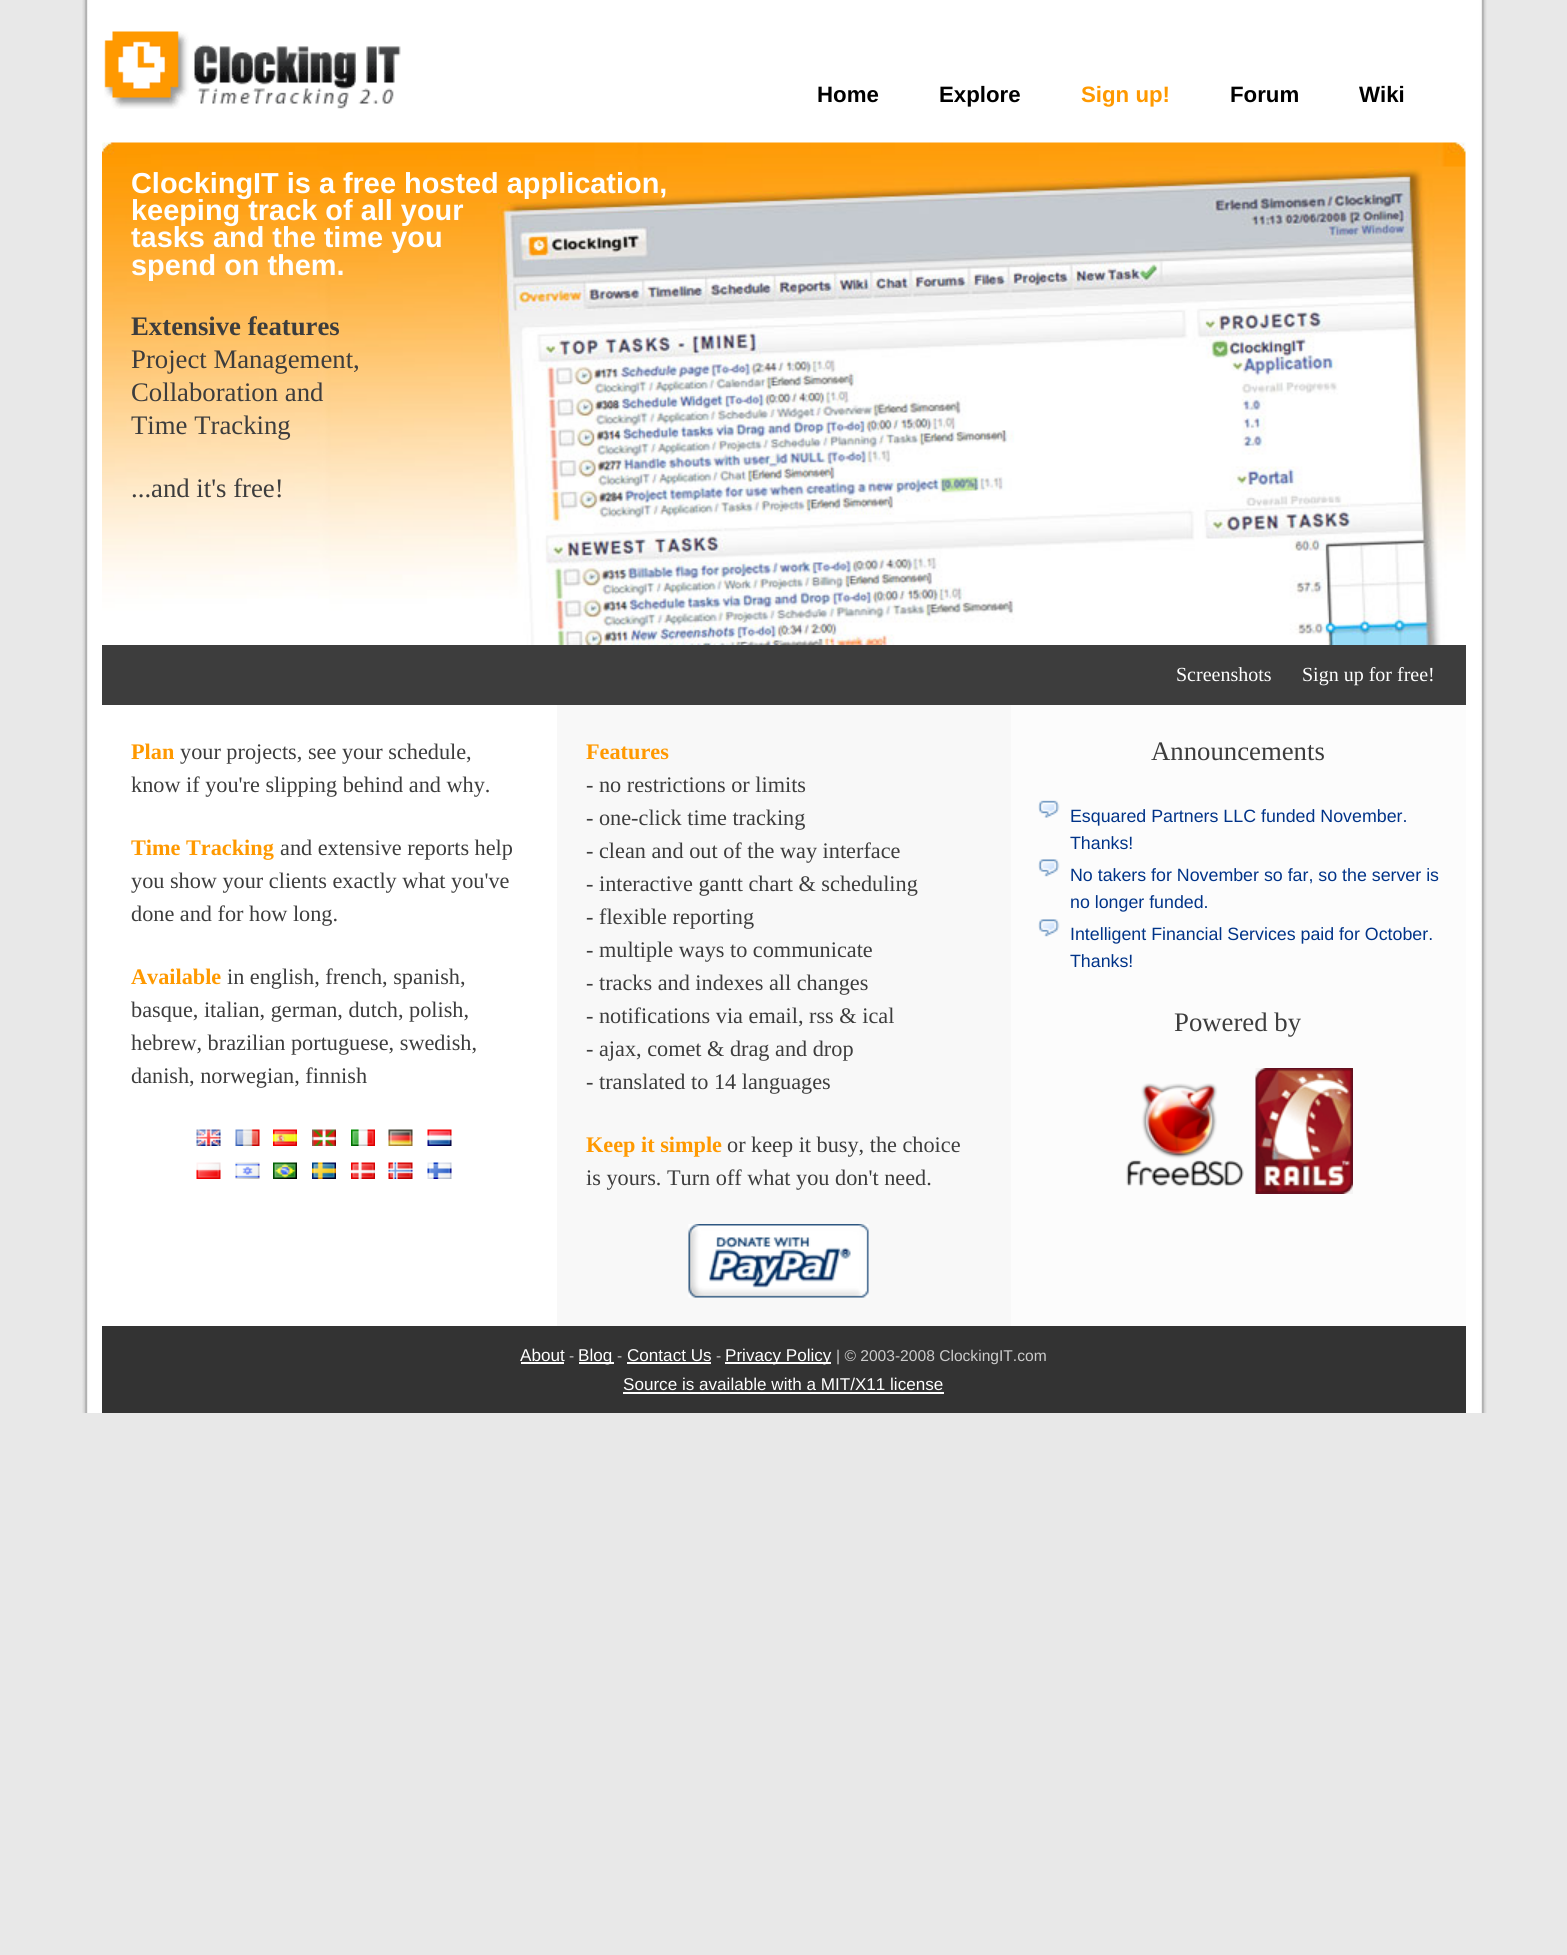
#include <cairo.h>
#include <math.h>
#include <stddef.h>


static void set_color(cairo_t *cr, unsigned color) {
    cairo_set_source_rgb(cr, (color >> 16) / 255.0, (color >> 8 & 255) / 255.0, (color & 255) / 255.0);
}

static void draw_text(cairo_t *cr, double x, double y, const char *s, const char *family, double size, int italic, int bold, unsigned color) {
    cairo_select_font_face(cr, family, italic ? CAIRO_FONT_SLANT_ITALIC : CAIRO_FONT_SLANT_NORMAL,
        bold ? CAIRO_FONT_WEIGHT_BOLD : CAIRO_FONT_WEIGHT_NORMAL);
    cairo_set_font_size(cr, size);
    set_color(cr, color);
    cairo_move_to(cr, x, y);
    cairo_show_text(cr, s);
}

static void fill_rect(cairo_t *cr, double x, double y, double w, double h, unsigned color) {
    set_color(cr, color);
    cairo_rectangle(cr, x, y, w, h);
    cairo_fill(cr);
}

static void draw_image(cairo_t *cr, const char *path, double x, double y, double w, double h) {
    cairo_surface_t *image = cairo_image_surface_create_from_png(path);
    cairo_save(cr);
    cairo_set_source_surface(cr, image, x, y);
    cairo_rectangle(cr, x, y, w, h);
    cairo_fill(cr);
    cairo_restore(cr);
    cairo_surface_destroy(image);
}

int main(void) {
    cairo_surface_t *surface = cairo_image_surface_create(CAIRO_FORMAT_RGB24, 1567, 1955);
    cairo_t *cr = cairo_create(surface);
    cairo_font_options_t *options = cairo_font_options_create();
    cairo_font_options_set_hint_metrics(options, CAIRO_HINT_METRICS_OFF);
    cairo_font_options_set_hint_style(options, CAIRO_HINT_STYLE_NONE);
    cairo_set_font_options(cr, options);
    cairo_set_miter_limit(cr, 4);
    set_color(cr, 0xE8E8E8);
    cairo_paint(cr);
    draw_image(cr, "assets/img1.png", 82, 0, 1405, 1413);
    draw_image(cr, "assets/img2.png", 104, 31, 297, 78);
    draw_text(cr, 817, 102, "Home", "Liberation Sans", 22.25, 0, 1, 0x000000);
    draw_text(cr, 939, 102, "Explore", "Liberation Sans", 22.25, 0, 1, 0x000000);
    draw_text(cr, 1081, 102, "Sign up!", "Liberation Sans", 22.25, 0, 1, 0xFF9900);
    draw_text(cr, 1230, 102, "Forum", "Liberation Sans", 22.25, 0, 1, 0x000000);
    draw_text(cr, 1359, 102, "Wiki", "Liberation Sans", 22.25, 0, 1, 0x000000);
    draw_image(cr, "assets/img3.png", 102, 142, 1364, 503);
    draw_text(cr, 131, 193, "ClockingIT is a free hosted application,", "Liberation Sans", 28.9, 0, 1, 0xFFFFFF);
    draw_text(cr, 131, 220, "keeping track of all your", "Liberation Sans", 28.9, 0, 1, 0xFFFFFF);
    draw_text(cr, 131, 247, "tasks and the time you", "Liberation Sans", 28.9, 0, 1, 0xFFFFFF);
    draw_text(cr, 131, 275, "spend on them.", "Liberation Sans", 28.9, 0, 1, 0xFFFFFF);
    draw_text(cr, 131, 335, "Extensive features", "Liberation Serif", 26.75, 0, 1, 0x3D3D3D);
    draw_text(cr, 131, 368, "Project Management,", "Liberation Serif", 26.75, 0, 0, 0x3D3D3D);
    draw_text(cr, 131, 401, "Collaboration and", "Liberation Serif", 26.75, 0, 0, 0x3D3D3D);
    draw_text(cr, 131, 434, "Time Tracking", "Liberation Serif", 26.75, 0, 0, 0x3D3D3D);
    draw_text(cr, 131, 497, "...and it's free!", "Liberation Serif", 26.75, 0, 0, 0x3D3D3D);
    fill_rect(cr, 102, 645, 1364, 60, 0x3D3D3D);
    draw_text(cr, 1176, 681, "Screenshots", "Liberation Serif", 20, 0, 0, 0xFFFFFF);
    draw_text(cr, 1302, 681, "Sign up for free!", "Liberation Serif", 20, 0, 0, 0xFFFFFF);
    draw_text(cr, 131, 759, "Plan", "Liberation Serif", 22.25, 0, 1, 0xFF9900);
    draw_text(cr, 180, 759, "your projects, see your schedule,", "Liberation Serif", 22.25, 0, 0, 0x3D3D3D);
    draw_text(cr, 131, 792, "know if you're slipping behind and why.", "Liberation Serif", 22.25, 0, 0, 0x3D3D3D);
    draw_text(cr, 131, 855, "Time Tracking", "Liberation Serif", 22.25, 0, 1, 0xFF9900);
    draw_text(cr, 280, 855, "and extensive reports help", "Liberation Serif", 22.25, 0, 0, 0x3D3D3D);
    draw_text(cr, 131, 888, "you show your clients exactly what you've", "Liberation Serif", 22.25, 0, 0, 0x3D3D3D);
    draw_text(cr, 131, 921, "done and for how long.", "Liberation Serif", 22.25, 0, 0, 0x3D3D3D);
    draw_text(cr, 131, 984, "Available", "Liberation Serif", 22.25, 0, 1, 0xFF9900);
    draw_text(cr, 227, 984, "in english, french, spanish,", "Liberation Serif", 22.25, 0, 0, 0x3D3D3D);
    draw_text(cr, 131, 1017, "basque, italian, german, dutch, polish,", "Liberation Serif", 22.25, 0, 0, 0x3D3D3D);
    draw_text(cr, 131, 1050, "hebrew, brazilian portuguese, swedish,", "Liberation Serif", 22.25, 0, 0, 0x3D3D3D);
    draw_text(cr, 131, 1083, "danish, norwegian, finnish", "Liberation Serif", 22.25, 0, 0, 0x3D3D3D);
    draw_image(cr, "assets/img4.png", 196, 1129, 25, 17);
    draw_image(cr, "assets/img5.png", 235, 1129, 25, 17);
    draw_image(cr, "assets/img6.png", 273, 1129, 24, 17);
    draw_image(cr, "assets/img7.png", 312, 1129, 24, 17);
    draw_image(cr, "assets/img8.png", 351, 1129, 24, 17);
    draw_image(cr, "assets/img9.png", 388, 1129, 25, 17);
    draw_image(cr, "assets/img10.png", 427, 1129, 25, 17);
    draw_image(cr, "assets/img11.png", 196, 1162, 25, 17);
    draw_image(cr, "assets/img12.png", 235, 1162, 25, 17);
    draw_image(cr, "assets/img13.png", 273, 1162, 24, 17);
    draw_image(cr, "assets/img14.png", 312, 1162, 24, 17);
    draw_image(cr, "assets/img15.png", 351, 1162, 24, 17);
    draw_image(cr, "assets/img16.png", 388, 1162, 25, 17);
    draw_image(cr, "assets/img17.png", 427, 1162, 25, 17);
    fill_rect(cr, 557, 705, 454, 621, 0xF8F8F8);
    draw_text(cr, 586, 759, "Features", "Liberation Serif", 22.25, 0, 1, 0xFF9900);
    draw_text(cr, 586, 792, "- no restrictions or limits", "Liberation Serif", 22.25, 0, 0, 0x3D3D3D);
    draw_text(cr, 586, 825, "- one-click time tracking", "Liberation Serif", 22.25, 0, 0, 0x3D3D3D);
    draw_text(cr, 586, 858, "- clean and out of the way interface", "Liberation Serif", 22.25, 0, 0, 0x3D3D3D);
    draw_text(cr, 586, 891, "- interactive gantt chart & scheduling", "Liberation Serif", 22.25, 0, 0, 0x3D3D3D);
    draw_text(cr, 586, 924, "- flexible reporting", "Liberation Serif", 22.25, 0, 0, 0x3D3D3D);
    draw_text(cr, 586, 957, "- multiple ways to communicate", "Liberation Serif", 22.25, 0, 0, 0x3D3D3D);
    draw_text(cr, 586, 990, "- tracks and indexes all changes", "Liberation Serif", 22.25, 0, 0, 0x3D3D3D);
    draw_text(cr, 586, 1023, "- notifications via email, rss & ical", "Liberation Serif", 22.25, 0, 0, 0x3D3D3D);
    draw_text(cr, 586, 1056, "- ajax, comet & drag and drop", "Liberation Serif", 22.25, 0, 0, 0x3D3D3D);
    draw_text(cr, 586, 1089, "- translated to 14 languages", "Liberation Serif", 22.25, 0, 0, 0x3D3D3D);
    draw_text(cr, 586, 1152, "Keep it simple", "Liberation Serif", 22.25, 0, 1, 0xFF9900);
    draw_text(cr, 727, 1152, "or keep it busy, the choice", "Liberation Serif", 22.25, 0, 0, 0x3D3D3D);
    draw_text(cr, 586, 1185, "is yours. Turn off what you don't need.", "Liberation Serif", 22.25, 0, 0, 0x3D3D3D);
    draw_image(cr, "assets/img18.png", 688, 1224, 181, 74);
    fill_rect(cr, 1011, 705, 455, 621, 0xFCFCFC);
    draw_text(cr, 1151, 760, "Announcements", "Liberation Serif", 26.75, 0, 0, 0x3D3D3D);
    draw_image(cr, "assets/img19.png", 1038, 800, 22, 18);
    draw_text(cr, 1070, 822, "Esquared Partners LLC funded November.", "Liberation Sans", 17.8, 0, 0, 0x003388);
    draw_text(cr, 1070, 849, "Thanks!", "Liberation Sans", 17.8, 0, 0, 0x003388);
    draw_image(cr, "assets/img20.png", 1038, 859, 22, 18);
    draw_text(cr, 1070, 881, "No takers for November so far, so the server is", "Liberation Sans", 17.8, 0, 0, 0x003388);
    draw_text(cr, 1070, 908, "no longer funded.", "Liberation Sans", 17.8, 0, 0, 0x003388);
    draw_image(cr, "assets/img20.png", 1038, 919, 22, 18);
    draw_text(cr, 1070, 940, "Intelligent Financial Services paid for October.", "Liberation Sans", 17.8, 0, 0, 0x003388);
    draw_text(cr, 1070, 967, "Thanks!", "Liberation Sans", 17.8, 0, 0, 0x003388);
    draw_text(cr, 1174, 1031, "Powered by", "Liberation Serif", 26.75, 0, 0, 0x3D3D3D);
    draw_image(cr, "assets/img21.png", 1126, 1083, 118, 104);
    draw_image(cr, "assets/img22.png", 1255, 1068, 98, 126);
    fill_rect(cr, 102, 1326, 1364, 87, 0x333333);
    draw_text(cr, 520, 1361, "About", "Liberation Sans", 17.1, 0, 0, 0xFFFFFF);
    fill_rect(cr, 521, 1362, 43, 2, 0xFFFFFF);
    draw_text(cr, 569, 1361, "-", "Liberation Sans", 15.6, 0, 0, 0xCCCCCC);
    fill_rect(cr, 579, 1362, 35, 2, 0xFFFFFF);
    draw_text(cr, 578, 1361, "Blog", "Liberation Sans", 17.1, 0, 0, 0xFFFFFF);
    draw_text(cr, 617, 1361, "-", "Liberation Sans", 15.6, 0, 0, 0xCCCCCC);
    draw_text(cr, 627, 1361, "Contact Us", "Liberation Sans", 17.1, 0, 0, 0xFFFFFF);
    fill_rect(cr, 627, 1362, 84, 2, 0xFFFFFF);
    draw_text(cr, 716, 1361, "-", "Liberation Sans", 15.6, 0, 0, 0xCCCCCC);
    fill_rect(cr, 725, 1362, 106, 2, 0xFFFFFF);
    draw_text(cr, 725, 1361, "Privacy Policy", "Liberation Sans", 17.1, 0, 0, 0xFFFFFF);
    draw_text(cr, 836, 1361, "| © 2003-2008 ClockingIT.com", "Liberation Sans", 15.6, 0, 0, 0xCCCCCC);
    draw_text(cr, 623, 1390, "Source is available with a MIT/X11 license", "Liberation Sans", 17.1, 0, 0, 0xFFFFFF);
    fill_rect(cr, 623, 1392, 321, 2, 0xFFFFFF);
    cairo_surface_write_to_png(surface, "output.png");
    cairo_font_options_destroy(options);
    cairo_destroy(cr);
    cairo_surface_destroy(surface);
    return 0;
}
